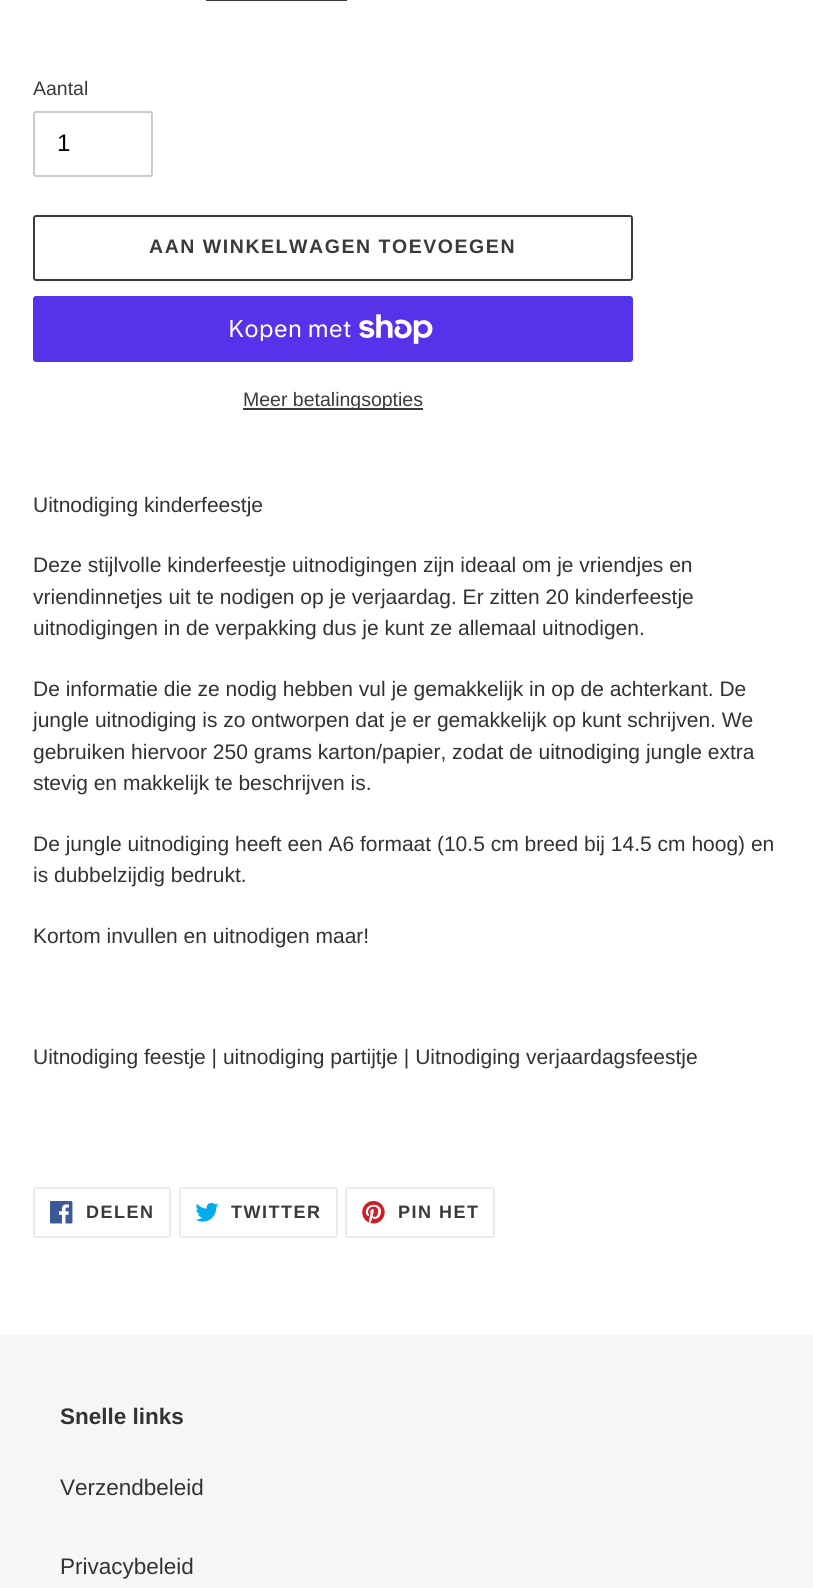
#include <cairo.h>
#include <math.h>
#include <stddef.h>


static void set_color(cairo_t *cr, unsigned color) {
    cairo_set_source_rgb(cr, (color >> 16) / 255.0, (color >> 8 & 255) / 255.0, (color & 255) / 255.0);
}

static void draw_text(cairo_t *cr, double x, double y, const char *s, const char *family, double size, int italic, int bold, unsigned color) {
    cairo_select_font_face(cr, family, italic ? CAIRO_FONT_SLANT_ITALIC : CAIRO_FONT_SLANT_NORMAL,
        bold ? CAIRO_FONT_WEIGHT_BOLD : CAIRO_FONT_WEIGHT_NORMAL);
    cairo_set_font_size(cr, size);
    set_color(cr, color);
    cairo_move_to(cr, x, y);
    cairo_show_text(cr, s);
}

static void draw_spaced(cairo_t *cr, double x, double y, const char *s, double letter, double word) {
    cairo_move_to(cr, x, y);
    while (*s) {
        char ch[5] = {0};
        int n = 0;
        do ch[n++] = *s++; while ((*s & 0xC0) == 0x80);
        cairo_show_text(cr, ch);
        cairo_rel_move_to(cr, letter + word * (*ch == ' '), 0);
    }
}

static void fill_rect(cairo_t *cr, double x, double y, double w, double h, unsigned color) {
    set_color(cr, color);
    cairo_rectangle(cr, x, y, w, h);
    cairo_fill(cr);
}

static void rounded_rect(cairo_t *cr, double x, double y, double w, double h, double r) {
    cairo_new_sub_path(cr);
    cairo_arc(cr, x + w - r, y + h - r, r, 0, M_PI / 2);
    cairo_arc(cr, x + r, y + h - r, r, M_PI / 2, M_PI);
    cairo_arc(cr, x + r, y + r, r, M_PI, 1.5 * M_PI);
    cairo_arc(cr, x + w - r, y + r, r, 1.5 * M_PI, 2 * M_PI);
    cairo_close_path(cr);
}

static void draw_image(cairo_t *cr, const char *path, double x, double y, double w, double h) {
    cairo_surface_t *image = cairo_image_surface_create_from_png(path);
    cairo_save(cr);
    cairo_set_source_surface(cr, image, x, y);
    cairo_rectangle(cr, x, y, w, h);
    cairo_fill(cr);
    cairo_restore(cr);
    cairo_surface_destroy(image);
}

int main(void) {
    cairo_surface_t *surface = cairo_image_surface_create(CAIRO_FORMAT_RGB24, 813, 1588);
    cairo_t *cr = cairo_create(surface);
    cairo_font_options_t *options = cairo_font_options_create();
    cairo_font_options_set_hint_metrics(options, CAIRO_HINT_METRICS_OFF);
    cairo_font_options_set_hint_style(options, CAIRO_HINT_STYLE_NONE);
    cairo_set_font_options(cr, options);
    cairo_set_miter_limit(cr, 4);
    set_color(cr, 0xFFFFFF);
    cairo_paint(cr);
    fill_rect(cr, 206, 0, 141, 1, 0x3A3A3A);
    draw_text(cr, 33, 95, "Aantal", "Liberation Sans", 19.5, 0, 0, 0x3A3A3A);
    rounded_rect(cr, 34, 112, 118, 64, 2);
    set_color(cr, 0xCCCCCC);
    cairo_stroke(cr);
    draw_text(cr, 57, 151, "1", "Liberation Sans", 24, 0, 0, 0x000000);
    rounded_rect(cr, 34, 216, 598, 64, 2);
    set_color(cr, 0x3A3A3A);
    cairo_stroke(cr);
    cairo_select_font_face(cr, "Liberation Sans", CAIRO_FONT_SLANT_NORMAL, CAIRO_FONT_WEIGHT_BOLD);
    cairo_set_font_size(cr, 19.5);
    draw_spaced(cr, 149, 253, "AAN WINKELWAGEN TOEVOEGEN", 1.55, 0);
    set_color(cr, 0x5433EB);
    rounded_rect(cr, 33, 296, 600, 66, 3);
    cairo_fill(cr);
    draw_text(cr, 228, 337, "Kopen met", "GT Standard", 24, 0, 0, 0xFFFFFF);
    draw_image(cr, "assets/img1.png", 359, 314, 74, 30);
    fill_rect(cr, 243, 408, 180, 2, 0x3A3A3A);
    draw_text(cr, 243, 406, "Meer betalingsopties", "Liberation Sans", 19.5, 0, 0, 0x3A3A3A);
    draw_text(cr, 33, 512, "Uitnodiging kinderfeestje", "Liberation Sans", 21, 0, 0, 0x333232);
    draw_text(cr, 33, 572, "Deze stijlvolle kinderfeestje uitnodigingen zijn ideaal om je vriendjes en", "Liberation Sans", 21, 0, 0, 0x333232);
    draw_text(cr, 33, 604, "vriendinnetjes uit te nodigen op je verjaardag. Er zitten 20 kinderfeestje", "Liberation Sans", 21, 0, 0, 0x333232);
    draw_text(cr, 33, 635, "uitnodigingen in de verpakking dus je kunt ze allemaal uitnodigen.", "Liberation Sans", 21, 0, 0, 0x333232);
    draw_text(cr, 33, 696, "De informatie die ze nodig hebben vul je gemakkelijk in op de achterkant. De", "Liberation Sans", 21, 0, 0, 0x333232);
    draw_text(cr, 33, 727, "jungle uitnodiging is zo ontworpen dat je er gemakkelijk op kunt schrijven. We", "Liberation Sans", 21, 0, 0, 0x333232);
    draw_text(cr, 33, 759, "gebruiken hiervoor 250 grams karton/papier, zodat de uitnodiging jungle extra", "Liberation Sans", 21, 0, 0, 0x333232);
    draw_text(cr, 33, 790, "stevig en makkelijk te beschrijven is.", "Liberation Sans", 21, 0, 0, 0x333232);
    draw_text(cr, 33, 851, "De jungle uitnodiging heeft een A6 formaat (10.5 cm breed bij 14.5 cm hoog) en", "Liberation Sans", 21, 0, 0, 0x333232);
    draw_text(cr, 33, 882, "is dubbelzijdig bedrukt.", "Liberation Sans", 21, 0, 0, 0x333232);
    draw_text(cr, 33, 943, "Kortom invullen en uitnodigen maar!", "Liberation Sans", 21, 0, 0, 0x333232);
    draw_text(cr, 33, 1064, "Uitnodiging feestje | uitnodiging partijtje | Uitnodiging verjaardagsfeestje", "Liberation Sans", 21, 0, 0, 0x333232);
    rounded_rect(cr, 34, 1188, 136, 49, 2);
    set_color(cr, 0xEBEBEB);
    cairo_stroke(cr);
    draw_image(cr, "assets/img2.png", 50, 1201, 23, 23);
    cairo_select_font_face(cr, "Liberation Sans", CAIRO_FONT_SLANT_NORMAL, CAIRO_FONT_WEIGHT_BOLD);
    cairo_set_font_size(cr, 18);
    set_color(cr, 0x3A3A3A);
    draw_spaced(cr, 86, 1218, "DELEN", 1.5, 0);
    rounded_rect(cr, 180, 1188, 157, 49, 2);
    set_color(cr, 0xEBEBEB);
    cairo_stroke(cr);
    draw_image(cr, "assets/img3.png", 195, 1202, 24, 20);
    set_color(cr, 0x3A3A3A);
    draw_spaced(cr, 231, 1218, "TWITTER", 1.5, 0);
    rounded_rect(cr, 346, 1188, 148, 49, 2);
    set_color(cr, 0xEBEBEB);
    cairo_stroke(cr);
    draw_image(cr, "assets/img4.png", 362, 1201, 23, 23);
    set_color(cr, 0x3A3A3A);
    draw_spaced(cr, 398, 1218, "PIN HET", 1.5, 0);
    fill_rect(cr, 0, 1335, 813, 253, 0xF6F6F6);
    draw_text(cr, 60, 1424, "Snelle links", "Liberation Sans", 22.5, 0, 1, 0x333232);
    draw_text(cr, 60, 1495, "Verzendbeleid", "Liberation Sans", 22.5, 0, 0, 0x333232);
    draw_text(cr, 60, 1574, "Privacybeleid", "Liberation Sans", 22.5, 0, 0, 0x333232);
    cairo_surface_write_to_png(surface, "output.png");
    cairo_font_options_destroy(options);
    cairo_destroy(cr);
    cairo_surface_destroy(surface);
    return 0;
}
